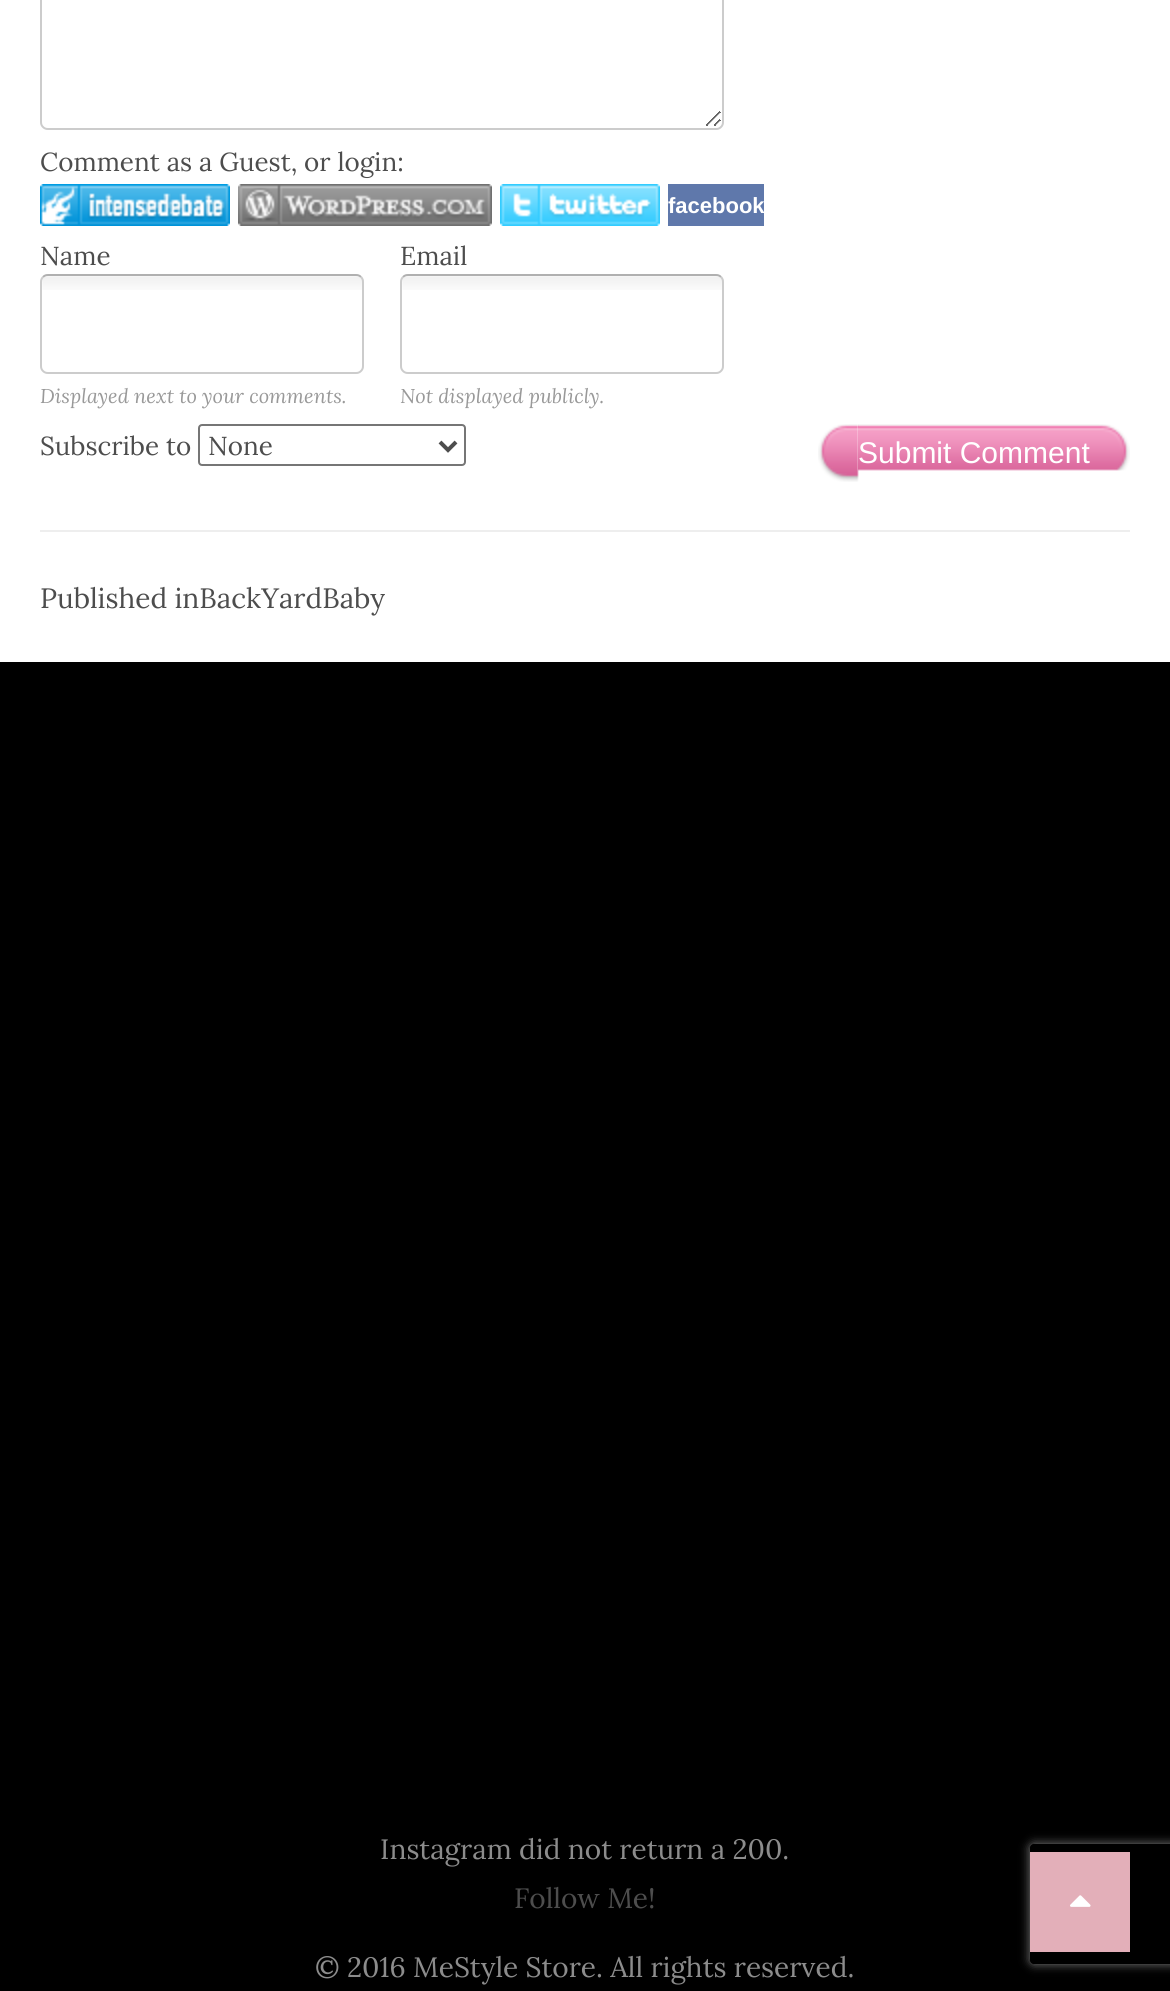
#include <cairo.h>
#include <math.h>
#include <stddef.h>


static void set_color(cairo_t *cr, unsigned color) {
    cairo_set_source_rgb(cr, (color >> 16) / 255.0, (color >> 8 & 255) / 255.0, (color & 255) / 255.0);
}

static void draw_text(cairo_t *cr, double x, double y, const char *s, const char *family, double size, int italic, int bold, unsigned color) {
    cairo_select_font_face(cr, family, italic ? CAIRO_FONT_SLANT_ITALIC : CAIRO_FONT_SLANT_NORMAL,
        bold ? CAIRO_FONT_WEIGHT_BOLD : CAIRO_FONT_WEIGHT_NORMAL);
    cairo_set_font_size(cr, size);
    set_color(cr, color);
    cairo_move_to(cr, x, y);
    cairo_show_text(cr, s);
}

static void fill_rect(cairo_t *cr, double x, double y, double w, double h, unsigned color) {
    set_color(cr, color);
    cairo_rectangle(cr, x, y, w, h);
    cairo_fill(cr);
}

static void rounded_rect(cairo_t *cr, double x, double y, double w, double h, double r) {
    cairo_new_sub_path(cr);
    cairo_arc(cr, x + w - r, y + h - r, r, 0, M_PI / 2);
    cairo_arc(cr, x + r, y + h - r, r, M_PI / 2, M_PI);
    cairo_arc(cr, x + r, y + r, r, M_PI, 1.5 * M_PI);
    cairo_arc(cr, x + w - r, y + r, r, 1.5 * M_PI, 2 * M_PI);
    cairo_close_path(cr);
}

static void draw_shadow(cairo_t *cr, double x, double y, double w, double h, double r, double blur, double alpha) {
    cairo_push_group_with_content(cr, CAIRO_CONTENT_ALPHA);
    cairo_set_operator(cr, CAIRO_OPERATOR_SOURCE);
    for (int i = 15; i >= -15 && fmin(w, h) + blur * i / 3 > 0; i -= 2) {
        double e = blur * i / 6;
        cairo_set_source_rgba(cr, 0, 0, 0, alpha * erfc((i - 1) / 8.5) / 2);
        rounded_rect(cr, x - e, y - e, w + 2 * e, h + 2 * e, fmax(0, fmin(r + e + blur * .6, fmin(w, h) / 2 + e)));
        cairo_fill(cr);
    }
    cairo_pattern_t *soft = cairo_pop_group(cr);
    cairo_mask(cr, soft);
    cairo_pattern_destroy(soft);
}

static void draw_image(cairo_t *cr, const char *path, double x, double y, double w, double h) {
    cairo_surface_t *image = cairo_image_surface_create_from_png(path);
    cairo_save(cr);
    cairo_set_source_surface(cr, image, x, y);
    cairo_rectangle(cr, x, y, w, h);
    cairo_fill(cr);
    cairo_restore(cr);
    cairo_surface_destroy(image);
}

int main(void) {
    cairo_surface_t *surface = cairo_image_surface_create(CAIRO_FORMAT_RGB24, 1170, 1991);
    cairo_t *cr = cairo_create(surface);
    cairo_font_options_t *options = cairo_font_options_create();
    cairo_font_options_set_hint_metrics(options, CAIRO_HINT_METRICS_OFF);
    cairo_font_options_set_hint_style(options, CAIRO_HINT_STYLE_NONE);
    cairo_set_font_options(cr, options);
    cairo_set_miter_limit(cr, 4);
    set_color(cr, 0xFFFFFF);
    cairo_paint(cr);
    draw_image(cr, "assets/img1.png", 706, 111, 15, 15);
    cairo_new_path(cr);
    cairo_move_to(cr, 721, -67);
    cairo_curve_to(cr, 722.5, -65.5, 723, -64, 723, -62);
    cairo_line_to(cr, 723, 122);
    cairo_curve_to(cr, 723, 124, 722.5, 125.5, 721, 127);
    cairo_curve_to(cr, 719.5, 128.5, 718, 129, 716, 129);
    cairo_line_to(cr, 48, 129);
    cairo_curve_to(cr, 46, 129, 44.5, 128.5, 43, 127);
    cairo_curve_to(cr, 41.5, 125.5, 41, 124, 41, 122);
    cairo_line_to(cr, 41, -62);
    cairo_curve_to(cr, 41, -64, 41.5, -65.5, 43, -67);
    set_color(cr, 0xCCCCCC);
    cairo_stroke(cr);
    draw_text(cr, 40, 171, "Comment as a Guest, or login:", "Lora", 26, 0, 0, 0x4D4D4D);
    draw_image(cr, "assets/img2.png", 40, 184, 190, 42);
    draw_image(cr, "assets/img3.png", 238, 184, 254, 42);
    draw_image(cr, "assets/img4.png", 500, 184, 160, 42);
    fill_rect(cr, 668, 184, 96, 42, 0x5F78AB);
    draw_text(cr, 668, 213, "facebook", "Liberation Sans", 22, 0, 1, 0xFFFFFF);
    draw_text(cr, 40, 265, "Name", "Lora", 26, 0, 0, 0x4D4D4D);
    draw_text(cr, 400, 265, "Email", "Lora", 26, 0, 0, 0x4D4D4D);
    draw_image(cr, "assets/img5.png", 42, 276, 322, 14);
    cairo_new_path(cr);
    cairo_move_to(cr, 43, 277);
    cairo_curve_to(cr, 44.5, 275.5, 46, 275, 48, 275);
    cairo_line_to(cr, 356, 275);
    cairo_curve_to(cr, 358, 275, 359.5, 275.5, 361, 277);
    set_color(cr, 0xB0B0B0);
    cairo_stroke(cr);
    cairo_new_path(cr);
    cairo_move_to(cr, 361, 277);
    cairo_curve_to(cr, 362.5, 278.5, 363, 280, 363, 282);
    cairo_line_to(cr, 363, 366);
    cairo_curve_to(cr, 363, 368, 362.5, 369.5, 361, 371);
    cairo_curve_to(cr, 359.5, 372.5, 358, 373, 356, 373);
    cairo_line_to(cr, 48, 373);
    cairo_curve_to(cr, 46, 373, 44.5, 372.5, 43, 371);
    cairo_curve_to(cr, 41.5, 369.5, 41, 368, 41, 366);
    cairo_line_to(cr, 41, 282);
    cairo_curve_to(cr, 41, 280, 41.5, 278.5, 43, 277);
    set_color(cr, 0xCCCCCC);
    cairo_stroke(cr);
    draw_text(cr, 40, 403, "Displayed next to your comments.", "Lora", 20, 1, 0, 0x999999);
    draw_image(cr, "assets/img5.png", 402, 276, 322, 14);
    cairo_new_path(cr);
    cairo_move_to(cr, 403, 277);
    cairo_curve_to(cr, 404.5, 275.5, 406, 275, 408, 275);
    cairo_line_to(cr, 716, 275);
    cairo_curve_to(cr, 718, 275, 719.5, 275.5, 721, 277);
    set_color(cr, 0xB0B0B0);
    cairo_stroke(cr);
    cairo_new_path(cr);
    cairo_move_to(cr, 721, 277);
    cairo_curve_to(cr, 722.5, 278.5, 723, 280, 723, 282);
    cairo_line_to(cr, 723, 366);
    cairo_curve_to(cr, 723, 368, 722.5, 369.5, 721, 371);
    cairo_curve_to(cr, 719.5, 372.5, 718, 373, 716, 373);
    cairo_line_to(cr, 408, 373);
    cairo_curve_to(cr, 406, 373, 404.5, 372.5, 403, 371);
    cairo_curve_to(cr, 401.5, 369.5, 401, 368, 401, 366);
    cairo_line_to(cr, 401, 282);
    cairo_curve_to(cr, 401, 280, 401.5, 278.5, 403, 277);
    set_color(cr, 0xCCCCCC);
    cairo_stroke(cr);
    draw_text(cr, 400, 403, "Not displayed publicly.", "Lora", 20, 1, 0, 0x999999);
    draw_text(cr, 40, 455, "Subscribe to", "Lora", 26, 0, 0, 0x4D4D4D);
    rounded_rect(cr, 199, 425, 266, 40, 3);
    set_color(cr, 0x767676);
    cairo_stroke(cr);
    cairo_new_path(cr);
    cairo_move_to(cr, 440, 442);
    cairo_line_to(cr, 448, 450);
    cairo_line_to(cr, 456, 442);
    set_color(cr, 0x4D4D4D);
    cairo_set_line_width(cr, 4);
    cairo_stroke(cr);
    draw_text(cr, 208, 455, "None", "Lora", 26, 0, 0, 0x4D4D4D);
    draw_image(cr, "assets/img6.png", 818, 424, 41, 58);
    draw_image(cr, "assets/img7.png", 858, 424, 272, 47);
    draw_text(cr, 858, 463, "Submit Comment", "Liberation Sans", 30, 0, 0, 0xFFFFFF);
    fill_rect(cr, 40, 530, 1090, 2, 0xEEEEEE);
    draw_text(cr, 40, 608, "Published inBackYardBaby", "Lora", 28, 0, 0, 0x4D4D4D);
    fill_rect(cr, 0, 662, 1170, 1329, 0x000000);
    draw_text(cr, 380, 1859, "Instagram did not return a 200.", "Lora", 28, 0, 0, 0x8C8C8C);
    draw_text(cr, 514, 1908, "Follow Me!", "Lora", 28, 0, 0, 0x4D4D4D);
    draw_text(cr, 315, 1977, "© 2016 MeStyle Store. All rights reserved.", "Lora", 28, 0, 0, 0x8C8C8C);
    cairo_save(cr);
    cairo_set_fill_rule(cr, CAIRO_FILL_RULE_EVEN_ODD);
    cairo_new_path(cr);
    cairo_move_to(cr, 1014, 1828);
    cairo_line_to(cr, 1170, 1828);
    cairo_line_to(cr, 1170, 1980);
    cairo_line_to(cr, 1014, 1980);
    cairo_close_path(cr);
    cairo_move_to(cr, 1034, 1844);
    cairo_line_to(cr, 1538, 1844);
    cairo_curve_to(cr, 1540, 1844, 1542, 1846, 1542, 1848);
    cairo_line_to(cr, 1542, 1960);
    cairo_curve_to(cr, 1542, 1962, 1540, 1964, 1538, 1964);
    cairo_line_to(cr, 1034, 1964);
    cairo_curve_to(cr, 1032, 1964, 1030, 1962, 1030, 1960);
    cairo_line_to(cr, 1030, 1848);
    cairo_curve_to(cr, 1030, 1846, 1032, 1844, 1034, 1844);
    cairo_close_path(cr);
    cairo_clip(cr);
    set_color(cr, 0x808080);
    draw_shadow(cr, 1030, 1844, 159, 120, 4, 5, 1);
    cairo_restore(cr);
    fill_rect(cr, 1030, 1852, 100, 100, 0xE3AFB9);
    draw_image(cr, "assets/img8.png", 1070, 1895, 21, 12);
    cairo_surface_write_to_png(surface, "output.png");
    cairo_font_options_destroy(options);
    cairo_destroy(cr);
    cairo_surface_destroy(surface);
    return 0;
}
